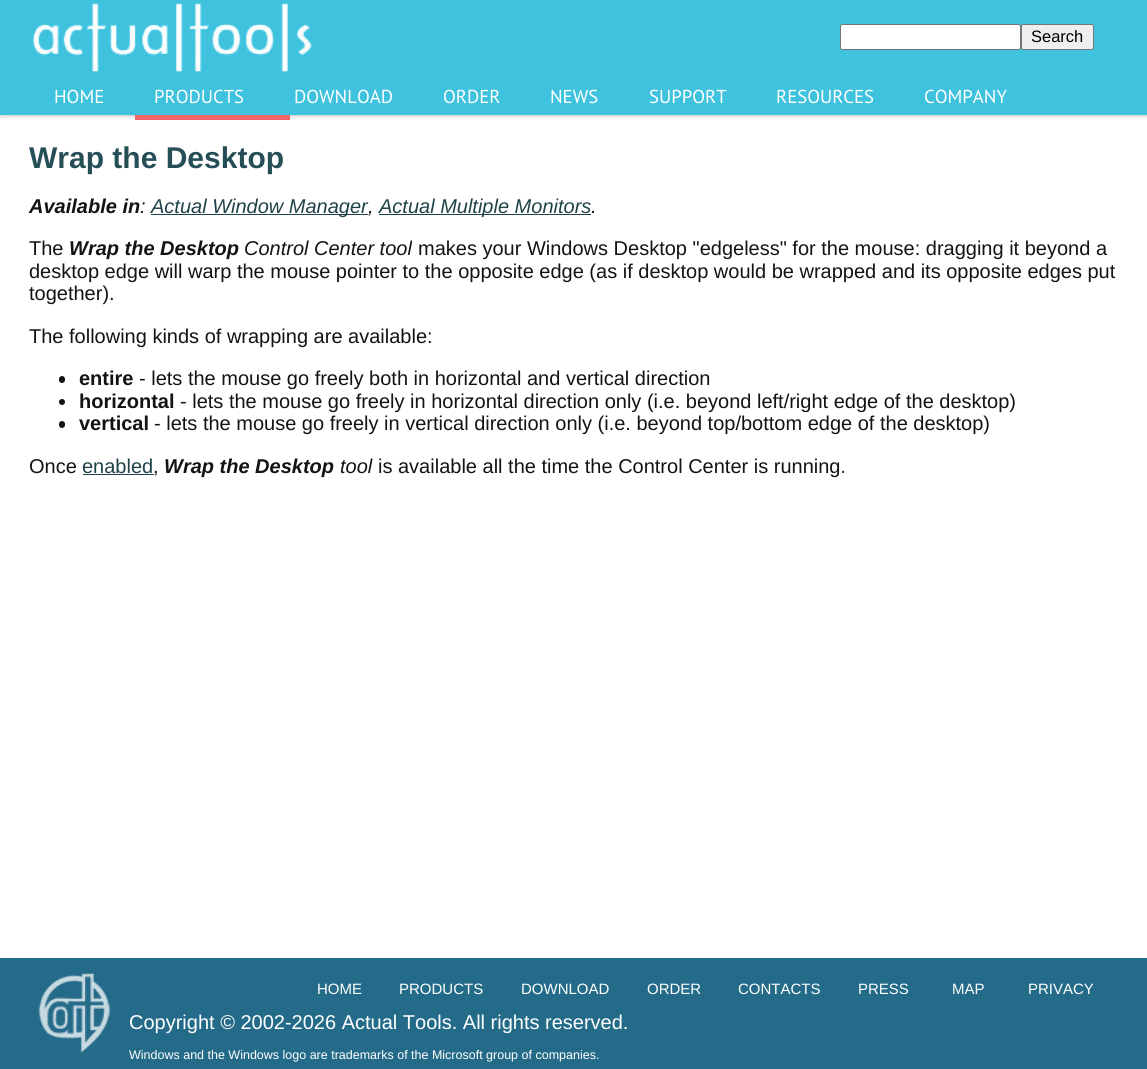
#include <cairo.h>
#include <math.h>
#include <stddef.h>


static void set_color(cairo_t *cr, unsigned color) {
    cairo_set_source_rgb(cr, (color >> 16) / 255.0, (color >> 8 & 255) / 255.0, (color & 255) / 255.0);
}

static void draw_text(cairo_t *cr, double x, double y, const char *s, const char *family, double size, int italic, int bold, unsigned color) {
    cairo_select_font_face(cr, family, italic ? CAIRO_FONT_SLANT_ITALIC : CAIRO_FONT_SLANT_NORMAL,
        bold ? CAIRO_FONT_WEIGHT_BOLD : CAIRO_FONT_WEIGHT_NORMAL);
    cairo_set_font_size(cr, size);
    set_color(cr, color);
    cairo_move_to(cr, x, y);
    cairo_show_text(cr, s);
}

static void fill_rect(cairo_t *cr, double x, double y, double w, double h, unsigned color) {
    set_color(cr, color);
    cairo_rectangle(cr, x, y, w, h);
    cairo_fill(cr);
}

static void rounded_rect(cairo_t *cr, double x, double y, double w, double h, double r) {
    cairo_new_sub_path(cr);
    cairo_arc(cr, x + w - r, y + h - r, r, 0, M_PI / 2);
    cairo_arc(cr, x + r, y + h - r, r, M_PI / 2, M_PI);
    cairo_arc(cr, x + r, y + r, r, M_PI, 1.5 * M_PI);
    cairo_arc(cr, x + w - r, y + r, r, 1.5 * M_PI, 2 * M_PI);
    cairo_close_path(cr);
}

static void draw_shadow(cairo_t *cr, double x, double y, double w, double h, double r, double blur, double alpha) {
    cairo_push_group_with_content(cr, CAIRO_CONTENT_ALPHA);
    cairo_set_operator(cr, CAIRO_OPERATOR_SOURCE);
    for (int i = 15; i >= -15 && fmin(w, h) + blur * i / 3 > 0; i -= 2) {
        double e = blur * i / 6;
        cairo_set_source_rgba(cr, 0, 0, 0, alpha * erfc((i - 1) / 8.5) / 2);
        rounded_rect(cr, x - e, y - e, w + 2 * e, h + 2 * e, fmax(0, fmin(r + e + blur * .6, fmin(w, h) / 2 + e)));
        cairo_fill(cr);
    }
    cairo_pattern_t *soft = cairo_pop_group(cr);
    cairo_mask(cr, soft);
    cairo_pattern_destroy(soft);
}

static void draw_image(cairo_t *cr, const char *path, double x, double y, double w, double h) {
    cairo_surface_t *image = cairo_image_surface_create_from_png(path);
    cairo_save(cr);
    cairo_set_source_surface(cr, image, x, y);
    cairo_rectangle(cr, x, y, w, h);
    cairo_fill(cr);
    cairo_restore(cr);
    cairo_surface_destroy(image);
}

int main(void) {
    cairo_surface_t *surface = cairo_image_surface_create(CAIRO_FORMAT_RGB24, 1147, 1069);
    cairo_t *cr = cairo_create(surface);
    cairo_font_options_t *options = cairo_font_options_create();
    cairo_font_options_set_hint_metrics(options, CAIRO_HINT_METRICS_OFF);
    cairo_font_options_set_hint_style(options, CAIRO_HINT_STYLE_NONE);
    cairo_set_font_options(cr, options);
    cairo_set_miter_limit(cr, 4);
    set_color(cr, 0xFFFFFF);
    cairo_paint(cr);
    set_color(cr, 0xBEBEBE);
    draw_shadow(cr, 1, -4, 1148, 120, 0, 2, 1);
    fill_rect(cr, 0, 0, 1147, 115, 0x3EC2DE);
    draw_image(cr, "assets/img1.png", 32, 3, 280, 69);
    set_color(cr, 0xFFFFFF);
    rounded_rect(cr, 840.5, 24.5, 180, 25, 2);
    cairo_fill_preserve(cr);
    set_color(cr, 0x767676);
    cairo_set_line_width(cr, 1);
    cairo_stroke(cr);
    set_color(cr, 0xEFEFEF);
    rounded_rect(cr, 1021.5, 24.5, 72, 25, 2);
    cairo_fill_preserve(cr);
    set_color(cr, 0x767676);
    cairo_stroke(cr);
    draw_text(cr, 1031, 42, "Search", "Liberation Sans", 16.5, 0, 0, 0x000000);
    draw_text(cr, 54, 103, "HOME", "PT Sans", 18.75, 0, 0, 0xFFFFFF);
    draw_text(cr, 154, 103, "PRODUCTS", "PT Sans", 18.75, 0, 0, 0xFFFFFF);
    draw_text(cr, 294, 103, "DOWNLOAD", "PT Sans", 18.75, 0, 0, 0xFFFFFF);
    draw_text(cr, 443, 103, "ORDER", "PT Sans", 18.75, 0, 0, 0xFFFFFF);
    draw_text(cr, 550, 103, "NEWS", "PT Sans", 18.75, 0, 0, 0xFFFFFF);
    draw_text(cr, 649, 103, "SUPPORT", "PT Sans", 18.75, 0, 0, 0xFFFFFF);
    draw_text(cr, 776, 103, "RESOURCES", "PT Sans", 18.75, 0, 0, 0xFFFFFF);
    draw_text(cr, 924, 103, "COMPANY", "PT Sans", 18.75, 0, 0, 0xFFFFFF);
    fill_rect(cr, 135, 115, 155, 5, 0xEE6666);
    draw_text(cr, 29, 168, "Wrap the Desktop", "Liberation Sans", 30, 0, 1, 0x254E57);
    draw_text(cr, 29, 213, "Available in", "Liberation Sans", 20, 1, 1, 0x131313);
    draw_text(cr, 140, 213, ":", "Liberation Sans", 20, 1, 0, 0x131313);
    fill_rect(cr, 151, 214, 217, 1, 0x204249);
    draw_text(cr, 151, 213, "Actual Window Manager", "Liberation Sans", 20, 1, 0, 0x204249);
    draw_text(cr, 368, 213, ",", "Liberation Sans", 20, 1, 0, 0x131313);
    fill_rect(cr, 379, 214, 212, 1, 0x204249);
    draw_text(cr, 379, 213, "Actual Multiple Monitors", "Liberation Sans", 20, 1, 0, 0x204249);
    draw_text(cr, 591, 213, ".", "Liberation Sans", 20, 1, 0, 0x131313);
    draw_text(cr, 29, 255, "The", "Liberation Sans", 20, 0, 0, 0x131313);
    draw_text(cr, 69, 255, "Wrap the Desktop", "Liberation Sans", 20, 1, 1, 0x131313);
    draw_text(cr, 244, 255, "Control Center tool", "Liberation Sans", 20, 1, 0, 0x131313);
    draw_text(cr, 418, 255, "makes your Windows Desktop \"edgeless\" for the mouse: dragging it beyond a", "Liberation Sans", 20, 0, 0, 0x131313);
    draw_text(cr, 29, 278, "desktop edge will warp the mouse pointer to the opposite edge (as if desktop would be wrapped and its opposite edges put", "Liberation Sans", 20, 0, 0, 0x131313);
    draw_text(cr, 29, 300, "together).", "Liberation Sans", 20, 0, 0, 0x131313);
    draw_text(cr, 29, 343, "The following kinds of wrapping are available:", "Liberation Sans", 20, 0, 0, 0x131313);
    rounded_rect(cr, 59, 376, 6, 7, 3);
    cairo_fill(cr);
    draw_text(cr, 79, 385, "entire", "Liberation Sans", 20, 0, 1, 0x131313);
    draw_text(cr, 139, 385, "- lets the mouse go freely both in horizontal and vertical direction", "Liberation Sans", 20, 0, 0, 0x131313);
    cairo_new_path(cr);
    cairo_arc(cr, 62, 402, 3, 0, 2 * M_PI);
    cairo_fill(cr);
    draw_text(cr, 79, 408, "horizontal", "Liberation Sans", 20, 0, 1, 0x131313);
    draw_text(cr, 180, 408, "- lets the mouse go freely in horizontal direction only (i.e. beyond left/right edge of the desktop)", "Liberation Sans", 20, 0, 0, 0x131313);
    rounded_rect(cr, 59, 421, 6, 7, 3);
    cairo_fill(cr);
    draw_text(cr, 79, 430, "vertical", "Liberation Sans", 20, 0, 1, 0x131313);
    draw_text(cr, 154, 430, "- lets the mouse go freely in vertical direction only (i.e. beyond top/bottom edge of the desktop)", "Liberation Sans", 20, 0, 0, 0x131313);
    draw_text(cr, 29, 473, "Once", "Liberation Sans", 20, 0, 0, 0x131313);
    draw_text(cr, 82, 473, "enabled", "Liberation Sans", 20, 0, 0, 0x204249);
    fill_rect(cr, 83, 474, 71, 1, 0x204249);
    draw_text(cr, 153, 473, ",", "Liberation Sans", 20, 0, 0, 0x131313);
    draw_text(cr, 164, 473, "Wrap the Desktop", "Liberation Sans", 20, 1, 1, 0x131313);
    draw_text(cr, 340, 473, "tool", "Liberation Sans", 20, 1, 0, 0x131313);
    draw_text(cr, 378, 473, "is available all the time the Control Center is running.", "Liberation Sans", 20, 0, 0, 0x131313);
    fill_rect(cr, 0, 958, 1147, 111, 0x246B89);
    draw_image(cr, "assets/img2.png", 38, 973, 73, 80);
    draw_text(cr, 317, 994, "HOME", "Liberation Sans", 15, 0, 0, 0xFFFFFF);
    draw_text(cr, 399, 994, "PRODUCTS", "Liberation Sans", 15, 0, 0, 0xFFFFFF);
    draw_text(cr, 521, 994, "DOWNLOAD", "Liberation Sans", 15, 0, 0, 0xFFFFFF);
    draw_text(cr, 647, 994, "ORDER", "Liberation Sans", 15, 0, 0, 0xFFFFFF);
    draw_text(cr, 738, 994, "CONTACTS", "Liberation Sans", 15, 0, 0, 0xFFFFFF);
    draw_text(cr, 858, 994, "PRESS", "Liberation Sans", 15, 0, 0, 0xFFFFFF);
    draw_text(cr, 952, 994, "MAP", "Liberation Sans", 15, 0, 0, 0xFFFFFF);
    draw_text(cr, 1028, 994, "PRIVACY", "Liberation Sans", 15, 0, 0, 0xFFFFFF);
    draw_text(cr, 129, 1029, "Copyright © 2002-2026 Actual Tools. All rights reserved.", "Liberation Sans", 20, 0, 0, 0xFFFFFF);
    draw_text(cr, 129, 1059, "Windows and the Windows logo are trademarks of the Microsoft group of companies.", "Liberation Sans", 12.5, 0, 0, 0xFFFFFF);
    cairo_surface_write_to_png(surface, "output.png");
    cairo_font_options_destroy(options);
    cairo_destroy(cr);
    cairo_surface_destroy(surface);
    return 0;
}
